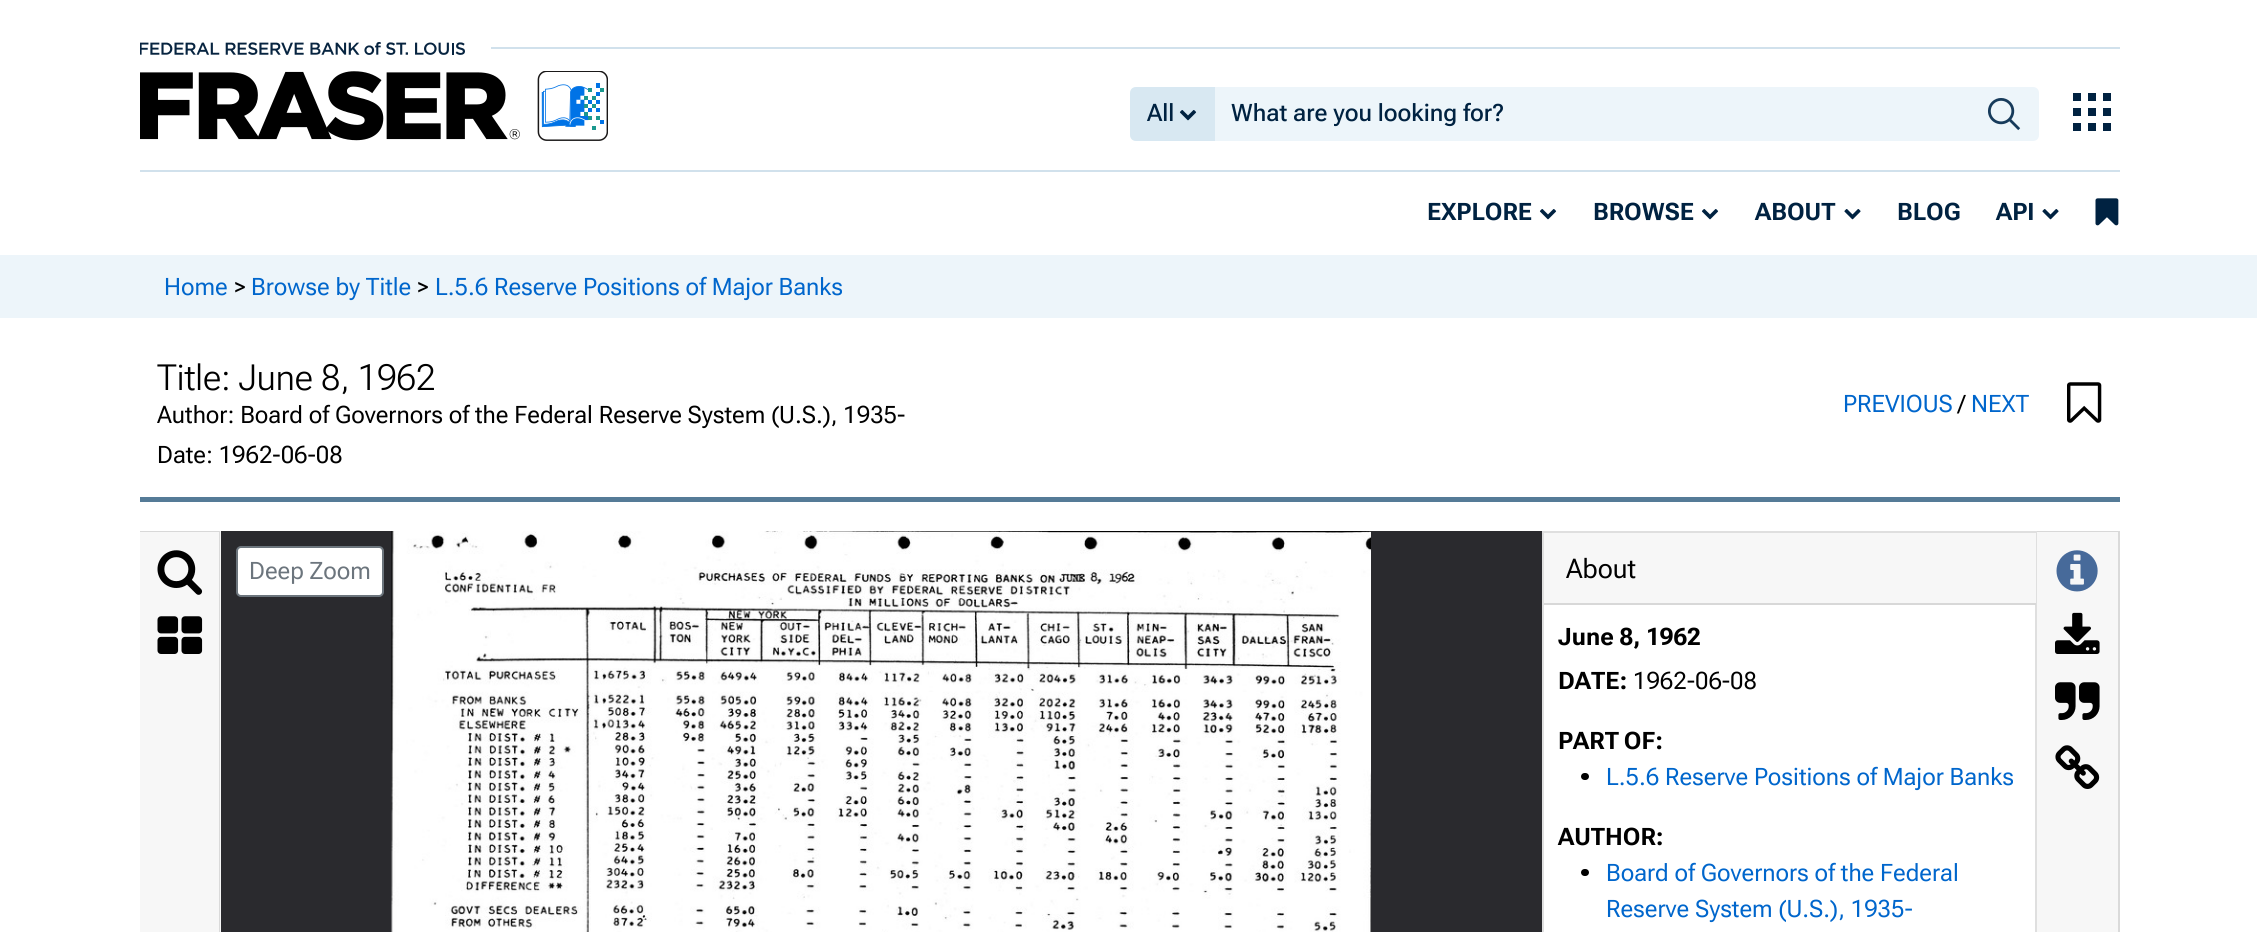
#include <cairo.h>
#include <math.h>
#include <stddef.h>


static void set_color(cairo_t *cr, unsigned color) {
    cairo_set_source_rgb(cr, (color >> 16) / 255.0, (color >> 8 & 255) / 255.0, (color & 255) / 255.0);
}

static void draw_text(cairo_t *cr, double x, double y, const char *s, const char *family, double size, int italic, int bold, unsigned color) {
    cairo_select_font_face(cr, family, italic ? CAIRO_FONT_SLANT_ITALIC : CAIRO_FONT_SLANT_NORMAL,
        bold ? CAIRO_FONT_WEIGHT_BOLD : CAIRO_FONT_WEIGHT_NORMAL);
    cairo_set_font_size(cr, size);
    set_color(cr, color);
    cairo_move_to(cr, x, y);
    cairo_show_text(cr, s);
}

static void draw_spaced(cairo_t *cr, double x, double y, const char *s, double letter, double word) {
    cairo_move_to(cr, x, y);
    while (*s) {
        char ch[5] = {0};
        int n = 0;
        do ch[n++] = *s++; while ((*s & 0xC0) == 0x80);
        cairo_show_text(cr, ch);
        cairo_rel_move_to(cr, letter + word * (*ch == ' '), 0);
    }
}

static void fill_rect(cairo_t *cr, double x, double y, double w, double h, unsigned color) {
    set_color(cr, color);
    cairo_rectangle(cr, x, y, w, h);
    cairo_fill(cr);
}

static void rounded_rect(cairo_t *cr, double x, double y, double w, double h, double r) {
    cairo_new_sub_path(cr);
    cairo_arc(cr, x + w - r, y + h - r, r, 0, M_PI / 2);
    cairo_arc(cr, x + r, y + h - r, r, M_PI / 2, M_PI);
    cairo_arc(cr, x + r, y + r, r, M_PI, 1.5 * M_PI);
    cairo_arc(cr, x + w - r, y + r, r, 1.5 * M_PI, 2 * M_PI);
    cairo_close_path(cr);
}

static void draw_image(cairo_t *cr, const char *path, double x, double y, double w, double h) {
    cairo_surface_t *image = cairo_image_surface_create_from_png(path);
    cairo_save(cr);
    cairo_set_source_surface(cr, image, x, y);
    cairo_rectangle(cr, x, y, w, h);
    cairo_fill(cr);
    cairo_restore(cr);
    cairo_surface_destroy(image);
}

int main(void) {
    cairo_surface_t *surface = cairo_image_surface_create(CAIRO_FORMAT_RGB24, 2257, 932);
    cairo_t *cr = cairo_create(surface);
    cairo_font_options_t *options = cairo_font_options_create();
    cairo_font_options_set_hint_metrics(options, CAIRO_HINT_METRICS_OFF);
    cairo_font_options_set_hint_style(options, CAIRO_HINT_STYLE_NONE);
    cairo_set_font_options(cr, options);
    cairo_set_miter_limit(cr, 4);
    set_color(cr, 0xFFFFFF);
    cairo_paint(cr);
    draw_image(cr, "assets/img1.png", 140, 42, 325, 13);
    fill_rect(cr, 491, 47, 1629, 2, 0xD1E1EC);
    fill_rect(cr, 140, 170, 1980, 2, 0xD1E1EC);
    draw_image(cr, "assets/img2.png", 140, 71, 468, 70);
    set_color(cr, 0xD8E8F2);
    cairo_new_path(cr);
    cairo_move_to(cr, 1136, 87);
    cairo_line_to(cr, 1215, 87);
    cairo_line_to(cr, 1215, 141);
    cairo_line_to(cr, 1136, 141);
    cairo_curve_to(cr, 1132.5, 141, 1130, 138.5, 1130, 135);
    cairo_line_to(cr, 1130, 93);
    cairo_curve_to(cr, 1130, 89.5, 1132.5, 87, 1136, 87);
    cairo_close_path(cr);
    cairo_fill(cr);
    draw_text(cr, 1147, 121, "All", "Roboto Flex Medium", 24, 0, 0, 0x002241);
    draw_image(cr, "assets/img3.png", 1179, 110, 18, 11);
    fill_rect(cr, 1215, 87, 755, 54, 0xEDF5FA);
    draw_text(cr, 1231, 121, "What are you looking for?", "Roboto Flex Medium", 24, 0, 0, 0x002241);
    set_color(cr, 0xEDF5FA);
    cairo_new_path(cr);
    cairo_move_to(cr, 1970, 87);
    cairo_line_to(cr, 2033, 87);
    cairo_curve_to(cr, 2036.5, 87, 2039, 89.5, 2039, 93);
    cairo_line_to(cr, 2039, 135);
    cairo_curve_to(cr, 2039, 138.5, 2036.5, 141, 2033, 141);
    cairo_line_to(cr, 1970, 141);
    cairo_close_path(cr);
    cairo_fill(cr);
    draw_image(cr, "assets/img4.png", 1988, 98, 33, 33);
    draw_image(cr, "assets/img5.png", 2073, 93, 38, 38);
    draw_text(cr, 1427, 220, "EXPLORE", "Roboto Flex", 24, 0, 1, 0x002241);
    draw_image(cr, "assets/img6.png", 1539, 209, 18, 11);
    draw_text(cr, 1593, 220, "BROWSE", "Roboto Flex", 24, 0, 1, 0x002241);
    draw_image(cr, "assets/img6.png", 1701, 209, 18, 11);
    draw_text(cr, 1755, 220, "ABOUT", "Roboto Flex", 24, 0, 1, 0x002241);
    draw_image(cr, "assets/img7.png", 1844, 209, 17, 11);
    draw_text(cr, 1897, 220, "BLOG", "Roboto Flex", 24, 0, 1, 0x002241);
    draw_text(cr, 1996, 220, "API", "Roboto Flex", 24, 0, 1, 0x002241);
    draw_image(cr, "assets/img7.png", 2042, 209, 17, 11);
    draw_image(cr, "assets/img8.png", 2095, 198, 24, 28);
    fill_rect(cr, 0, 255, 2257, 63, 0xEDF5FA);
    draw_text(cr, 164, 295, "Home", "Roboto Flex", 24, 0, 0, 0x0066CC);
    draw_text(cr, 234, 295, ">", "Roboto Flex", 24, 0, 0, 0x000000);
    draw_text(cr, 251, 295, "Browse by Title", "Roboto Flex", 24, 0, 0, 0x0066CC);
    draw_text(cr, 417, 295, ">", "Roboto Flex", 24, 0, 0, 0x000000);
    draw_text(cr, 435, 295, "L.5.6 Reserve Positions of Major Banks", "Roboto Flex", 24, 0, 0, 0x0066CC);
    fill_rect(cr, 140, 497, 1980, 5, 0x557B97);
    draw_text(cr, 157, 390, "Title: June 8, 1962", "Roboto Flex Light", 36, 0, 0, 0x000000);
    draw_text(cr, 157, 423, "Author: Board of Governors of the Federal Reserve System (U.S.), 1935-", "Roboto Flex", 24, 0, 0, 0x000000);
    draw_text(cr, 157, 463, "Date: 1962-06-08", "Roboto Flex", 24, 0, 0, 0x000000);
    draw_text(cr, 1843, 412, "PREVIOUS", "Roboto Flex", 24, 0, 0, 0x0066CC);
    draw_text(cr, 1958, 412, "/", "Roboto Flex", 24, 0, 0, 0x000000);
    draw_text(cr, 1971, 412, "NEXT", "Roboto Flex", 24, 0, 0, 0x0066CC);
    draw_image(cr, "assets/img9.png", 2067, 382, 35, 41);
    fill_rect(cr, 140, 531, 81, 401, 0xF7F7F7);
    set_color(cr, 0xD8D8D8);
    cairo_new_path(cr);
    cairo_move_to(cr, 140, 531);
    cairo_line_to(cr, 220, 531);
    cairo_line_to(cr, 219, 532);
    cairo_line_to(cr, 140, 532);
    cairo_close_path(cr);
    cairo_fill(cr);
    cairo_set_source_rgba(cr, 0, 0, 0, 0.12);
    cairo_new_path(cr);
    cairo_move_to(cr, 220, 531);
    cairo_line_to(cr, 220, 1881);
    cairo_line_to(cr, 219, 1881);
    cairo_line_to(cr, 219, 532);
    cairo_close_path(cr);
    cairo_fill(cr);
    draw_image(cr, "assets/img10.png", 157, 550, 46, 45);
    draw_image(cr, "assets/img11.png", 157, 616, 46, 38);
    fill_rect(cr, 221, 531, 1321, 401, 0x2A2A2E);
    set_color(cr, 0xFFFFFF);
    rounded_rect(cr, 237, 547, 146, 49, 4);
    cairo_fill_preserve(cr);
    set_color(cr, 0x6C757D);
    cairo_stroke(cr);
    draw_text(cr, 249, 579, "Deep Zoom", "Roboto Flex", 24, 0, 0, 0x6C757D);
    draw_image(cr, "assets/img12.png", 391, 531, 980, 401);
    cairo_rectangle(cr, 1543, 532, 493, 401);
    set_color(cr, 0xDFDFDF);
    cairo_stroke(cr);
    fill_rect(cr, 1544, 533, 492, 70, 0xF7F7F7);
    fill_rect(cr, 1544, 603, 492, 2, 0xD8D8D8);
    draw_text(cr, 1566, 578, "About", "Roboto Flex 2", 27, 0, 0, 0x000000);
    draw_text(cr, 1558, 645, "June 8, 1962", "Roboto Flex", 24, 0, 1, 0x000000);
    draw_text(cr, 1558, 689, "DATE:", "Roboto Flex", 24, 0, 1, 0x000000);
    draw_text(cr, 1633, 689, "1962-06-08", "Roboto Flex", 24, 0, 0, 0x000000);
    cairo_select_font_face(cr, "Roboto Flex", CAIRO_FONT_SLANT_NORMAL, CAIRO_FONT_WEIGHT_BOLD);
    draw_spaced(cr, 1558, 749, "PART OF:", 0, -1);
    rounded_rect(cr, 1581, 773, 8, 7, 3.5);
    cairo_fill(cr);
    draw_text(cr, 1606, 785, "L.5.6 Reserve Positions of Major Banks", "Roboto Flex", 24, 0, 0, 0x0066CC);
    draw_text(cr, 1558, 845, "AUTHOR:", "Roboto Flex", 24, 0, 1, 0x000000);
    rounded_rect(cr, 1581, 869, 8, 7, 3.5);
    cairo_fill(cr);
    draw_text(cr, 1606, 881, "Board of Governors of the Federal", "Roboto Flex", 24, 0, 0, 0x0066CC);
    draw_text(cr, 1606, 917, "Reserve System (U.S.), 1935-", "Roboto Flex", 24, 0, 0, 0x0066CC);
    fill_rect(cr, 2037, 531, 83, 401, 0xF7F7F7);
    set_color(cr, 0xD8D8D8);
    cairo_new_path(cr);
    cairo_move_to(cr, 2037, 531);
    cairo_line_to(cr, 2120, 531);
    cairo_line_to(cr, 2118, 532);
    cairo_line_to(cr, 2037, 532);
    cairo_close_path(cr);
    cairo_fill(cr);
    cairo_set_source_rgba(cr, 0, 0, 0, 0.12);
    cairo_new_path(cr);
    cairo_move_to(cr, 2120, 531);
    cairo_line_to(cr, 2120, 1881);
    cairo_line_to(cr, 2118, 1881);
    cairo_line_to(cr, 2118, 532);
    cairo_close_path(cr);
    cairo_fill(cr);
    draw_image(cr, "assets/img13.png", 2056, 550, 42, 42);
    draw_image(cr, "assets/img14.png", 2055, 612, 45, 42);
    draw_image(cr, "assets/img15.png", 2055, 682, 45, 38);
    draw_image(cr, "assets/img16.png", 2055, 745, 45, 44);
    cairo_surface_write_to_png(surface, "output.png");
    cairo_font_options_destroy(options);
    cairo_destroy(cr);
    cairo_surface_destroy(surface);
    return 0;
}
